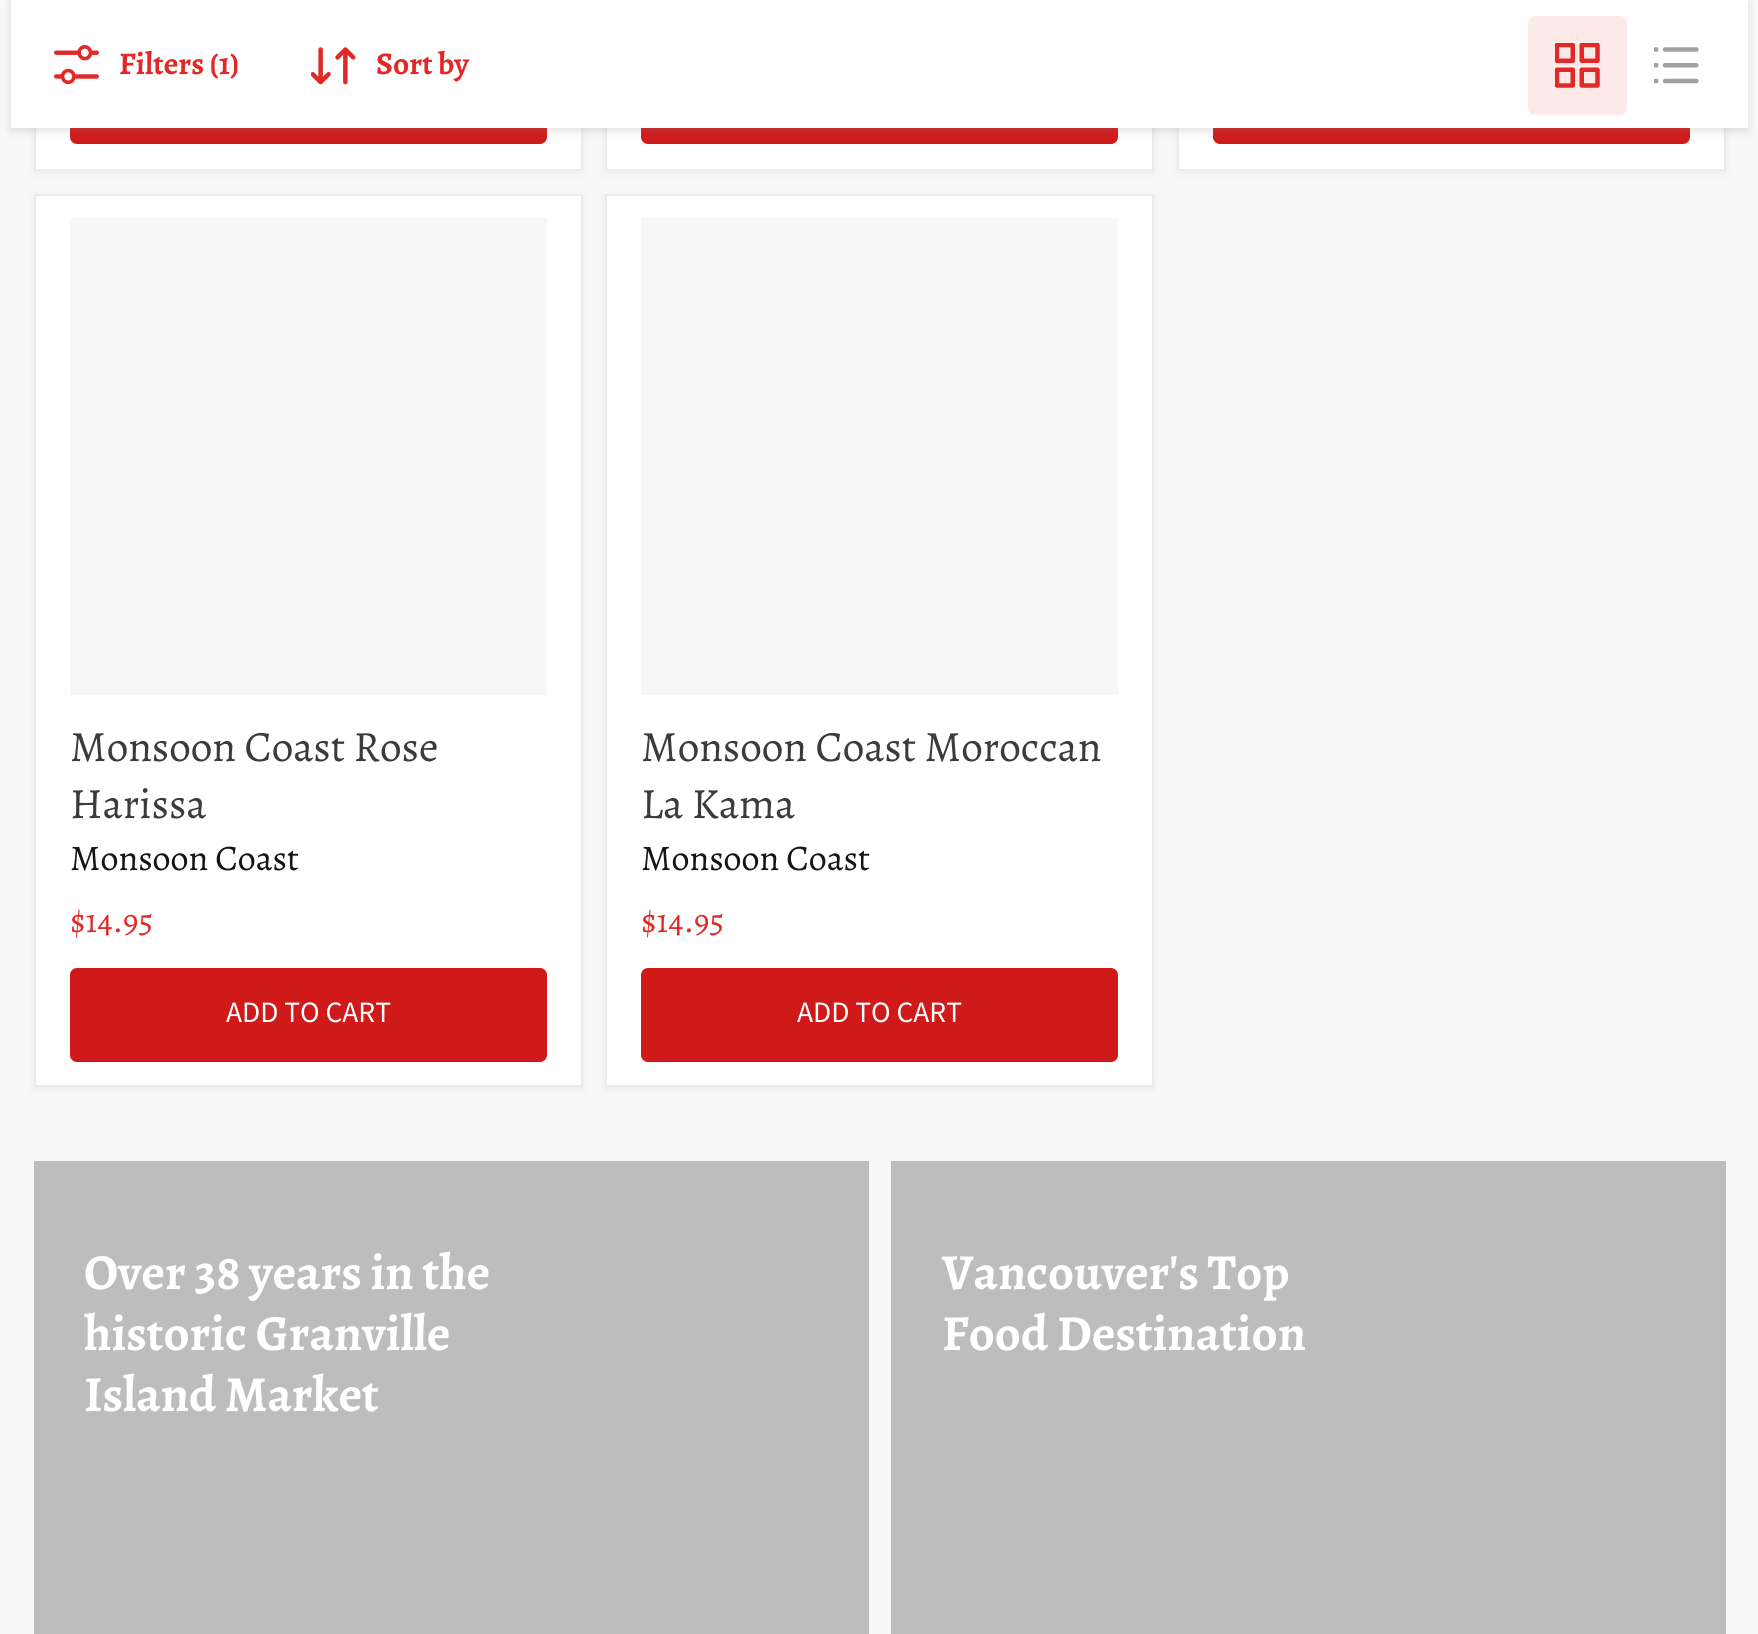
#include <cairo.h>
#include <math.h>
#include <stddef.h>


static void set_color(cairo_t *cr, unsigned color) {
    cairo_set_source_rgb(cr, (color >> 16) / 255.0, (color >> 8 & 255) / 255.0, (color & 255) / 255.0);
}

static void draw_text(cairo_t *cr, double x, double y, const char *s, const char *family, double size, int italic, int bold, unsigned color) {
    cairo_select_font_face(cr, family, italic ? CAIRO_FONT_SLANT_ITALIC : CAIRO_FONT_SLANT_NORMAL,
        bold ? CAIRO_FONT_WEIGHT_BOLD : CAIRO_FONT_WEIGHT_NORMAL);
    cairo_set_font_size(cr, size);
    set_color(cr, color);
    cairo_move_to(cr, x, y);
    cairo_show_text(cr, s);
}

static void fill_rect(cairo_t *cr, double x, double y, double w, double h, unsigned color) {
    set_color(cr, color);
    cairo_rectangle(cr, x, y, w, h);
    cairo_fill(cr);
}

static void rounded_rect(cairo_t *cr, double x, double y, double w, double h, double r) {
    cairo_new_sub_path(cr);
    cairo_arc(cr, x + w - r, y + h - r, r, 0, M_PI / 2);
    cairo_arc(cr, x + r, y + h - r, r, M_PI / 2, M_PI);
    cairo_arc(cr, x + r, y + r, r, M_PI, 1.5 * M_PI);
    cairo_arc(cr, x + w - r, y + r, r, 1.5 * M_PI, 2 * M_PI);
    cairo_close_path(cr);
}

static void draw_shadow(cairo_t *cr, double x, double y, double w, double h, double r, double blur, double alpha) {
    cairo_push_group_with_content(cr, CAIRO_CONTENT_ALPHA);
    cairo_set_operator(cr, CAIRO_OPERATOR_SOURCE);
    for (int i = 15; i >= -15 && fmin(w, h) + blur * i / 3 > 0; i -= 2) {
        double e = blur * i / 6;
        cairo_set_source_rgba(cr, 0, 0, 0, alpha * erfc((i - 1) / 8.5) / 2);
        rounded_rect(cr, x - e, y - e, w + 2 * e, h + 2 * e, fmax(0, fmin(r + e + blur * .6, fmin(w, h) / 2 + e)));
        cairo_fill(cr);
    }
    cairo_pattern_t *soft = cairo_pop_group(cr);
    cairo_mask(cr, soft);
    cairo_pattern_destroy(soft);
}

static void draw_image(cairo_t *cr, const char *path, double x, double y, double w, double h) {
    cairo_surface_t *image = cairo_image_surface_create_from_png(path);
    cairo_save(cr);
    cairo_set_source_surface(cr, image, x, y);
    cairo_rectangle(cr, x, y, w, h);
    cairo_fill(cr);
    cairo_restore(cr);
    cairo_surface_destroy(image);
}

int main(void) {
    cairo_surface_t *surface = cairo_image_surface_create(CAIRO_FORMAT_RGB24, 1758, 1634);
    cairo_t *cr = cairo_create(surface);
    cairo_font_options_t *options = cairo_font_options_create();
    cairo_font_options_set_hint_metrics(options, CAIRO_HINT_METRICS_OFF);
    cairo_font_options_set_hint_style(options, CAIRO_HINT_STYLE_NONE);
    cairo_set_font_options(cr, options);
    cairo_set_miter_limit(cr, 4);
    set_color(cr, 0xF8F8F8);
    cairo_paint(cr);
    set_color(cr, 0x808080);
    draw_shadow(cr, 34, -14, 549, 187, 0, 4.5, 0.11);
    fill_rect(cr, 36, 128, 545, 41, 0xFFFFFF);
    cairo_rectangle(cr, 35, -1, 547, 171);
    set_color(cr, 0xEBEBEB);
    cairo_stroke(cr);
    set_color(cr, 0xD01A1A);
    rounded_rect(cr, 71, 53, 475, 90, 6);
    cairo_fill_preserve(cr);
    cairo_stroke(cr);
    set_color(cr, 0x808080);
    draw_shadow(cr, 605, -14, 549, 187, 0, 4.5, 0.11);
    fill_rect(cr, 607, 128, 545, 41, 0xFFFFFF);
    cairo_rectangle(cr, 606, -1, 547, 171);
    set_color(cr, 0xEBEBEB);
    cairo_stroke(cr);
    set_color(cr, 0xD01A1A);
    rounded_rect(cr, 642, 53, 475, 90, 6);
    cairo_fill_preserve(cr);
    cairo_stroke(cr);
    set_color(cr, 0x808080);
    draw_shadow(cr, 1177, -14, 549, 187, 0, 4.5, 0.11);
    fill_rect(cr, 1179, 128, 545, 41, 0xFFFFFF);
    cairo_rectangle(cr, 1178, -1, 547, 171);
    set_color(cr, 0xEBEBEB);
    cairo_stroke(cr);
    set_color(cr, 0xD01A1A);
    rounded_rect(cr, 1214, 53, 475, 90, 6);
    cairo_fill_preserve(cr);
    cairo_stroke(cr);
    set_color(cr, 0x808080);
    draw_shadow(cr, 11, 2, 1737, 129, 0, 4.5, 0.25);
    fill_rect(cr, 11, 0, 1737, 128, 0xFFFFFF);
    draw_image(cr, "assets/img1.png", 54, 45, 45, 40);
    draw_text(cr, 119, 74, "Filters (1)", "Alegreya", 31.5, 0, 1, 0xE12927);
    draw_image(cr, "assets/img2.png", 311, 47, 45, 38);
    draw_text(cr, 376, 74, "Sort by", "Alegreya", 31.5, 0, 1, 0xE12927);
    set_color(cr, 0xFCEAE9);
    rounded_rect(cr, 1528, 16, 99, 99, 7);
    cairo_fill(cr);
    draw_image(cr, "assets/img3.png", 1555, 43, 45, 45);
    draw_image(cr, "assets/img4.png", 1654, 47, 45, 37);
    set_color(cr, 0x808080);
    draw_shadow(cr, 34, 196, 549, 893, 0, 4.5, 0.11);
    set_color(cr, 0xFFFFFF);
    cairo_rectangle(cr, 35, 195, 547, 891);
    cairo_fill_preserve(cr);
    set_color(cr, 0xEBEBEB);
    cairo_stroke(cr);
    fill_rect(cr, 70, 218, 477, 477, 0xF7F7F7);
    draw_text(cr, 70, 761, "Monsoon Coast Rose", "Alegreya", 43.25, 0, 0, 0x3C3B3B);
    draw_text(cr, 70, 818, "Harissa", "Alegreya", 43.25, 0, 0, 0x3C3B3B);
    draw_text(cr, 70, 870, "Monsoon Coast", "Alegreya", 36, 0, 0, 0x141414);
    draw_text(cr, 70, 932, "$14.95", "Alegreya", 34, 0, 0, 0xE12927);
    set_color(cr, 0xD01A1A);
    rounded_rect(cr, 71, 969, 475, 92, 6);
    cairo_fill_preserve(cr);
    cairo_stroke(cr);
    draw_text(cr, 226, 1022, "ADD TO CART", "Source Sans Pro", 29.5, 0, 0, 0xFFFFFF);
    set_color(cr, 0x808080);
    draw_shadow(cr, 605, 196, 549, 893, 0, 4.5, 0.11);
    set_color(cr, 0xFFFFFF);
    cairo_rectangle(cr, 606, 195, 547, 891);
    cairo_fill_preserve(cr);
    set_color(cr, 0xEBEBEB);
    cairo_stroke(cr);
    fill_rect(cr, 641, 218, 477, 477, 0xF7F7F7);
    draw_text(cr, 641, 761, "Monsoon Coast Moroccan", "Alegreya", 43.25, 0, 0, 0x3C3B3B);
    draw_text(cr, 641, 818, "La Kama", "Alegreya", 43.25, 0, 0, 0x3C3B3B);
    draw_text(cr, 641, 870, "Monsoon Coast", "Alegreya", 36, 0, 0, 0x141414);
    draw_text(cr, 641, 932, "$14.95", "Alegreya", 34, 0, 0, 0xE12927);
    set_color(cr, 0xD01A1A);
    rounded_rect(cr, 642, 969, 475, 92, 6);
    cairo_fill_preserve(cr);
    cairo_stroke(cr);
    draw_text(cr, 797, 1022, "ADD TO CART", "Source Sans Pro", 29.5, 0, 0, 0xFFFFFF);
    fill_rect(cr, 34, 1161, 835, 473, 0xBEBDBD);
    draw_text(cr, 84, 1289, "Over 38 years in the", "Alegreya", 50.5, 0, 1, 0xFFFFFF);
    draw_text(cr, 84, 1350, "historic Granville", "Alegreya", 50.5, 0, 1, 0xFFFFFF);
    draw_text(cr, 84, 1411, "Island Market", "Alegreya", 50.5, 0, 1, 0xFFFFFF);
    fill_rect(cr, 891, 1161, 835, 473, 0xBEBDBD);
    draw_text(cr, 942, 1289, "Vancouver's Top", "Alegreya", 50.5, 0, 1, 0xFFFFFF);
    draw_text(cr, 942, 1350, "Food Destination", "Alegreya", 50.5, 0, 1, 0xFFFFFF);
    cairo_surface_write_to_png(surface, "output.png");
    cairo_font_options_destroy(options);
    cairo_destroy(cr);
    cairo_surface_destroy(surface);
    return 0;
}
